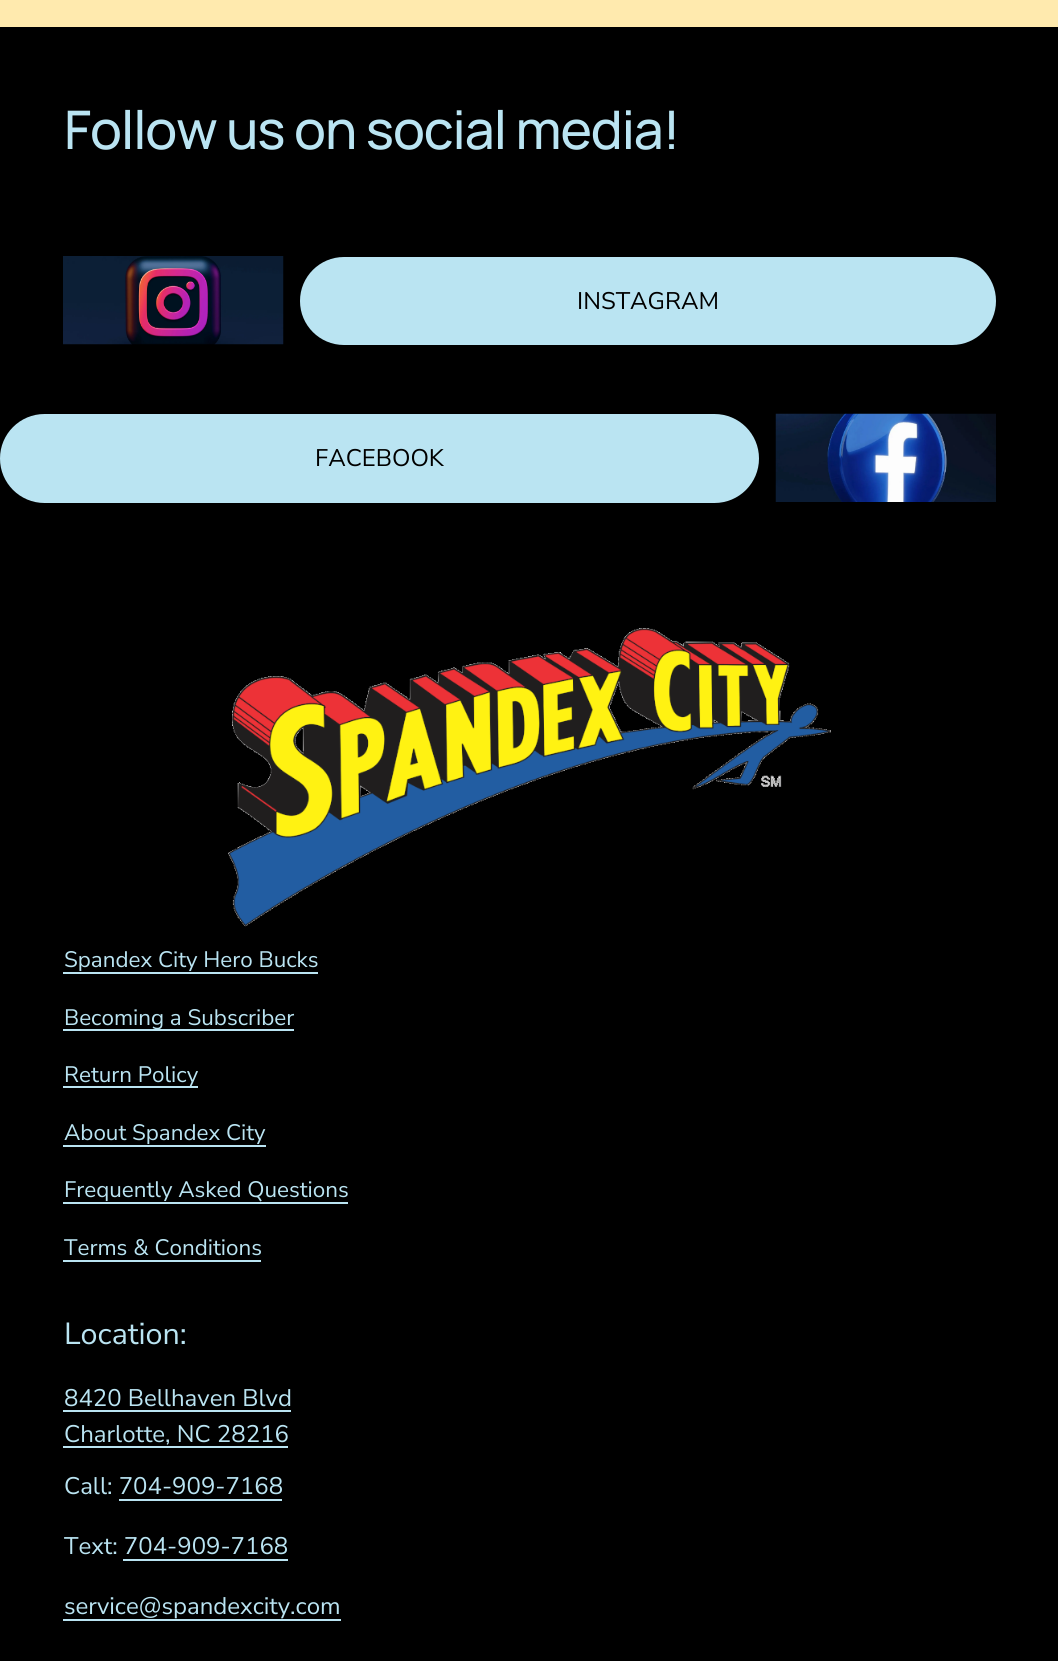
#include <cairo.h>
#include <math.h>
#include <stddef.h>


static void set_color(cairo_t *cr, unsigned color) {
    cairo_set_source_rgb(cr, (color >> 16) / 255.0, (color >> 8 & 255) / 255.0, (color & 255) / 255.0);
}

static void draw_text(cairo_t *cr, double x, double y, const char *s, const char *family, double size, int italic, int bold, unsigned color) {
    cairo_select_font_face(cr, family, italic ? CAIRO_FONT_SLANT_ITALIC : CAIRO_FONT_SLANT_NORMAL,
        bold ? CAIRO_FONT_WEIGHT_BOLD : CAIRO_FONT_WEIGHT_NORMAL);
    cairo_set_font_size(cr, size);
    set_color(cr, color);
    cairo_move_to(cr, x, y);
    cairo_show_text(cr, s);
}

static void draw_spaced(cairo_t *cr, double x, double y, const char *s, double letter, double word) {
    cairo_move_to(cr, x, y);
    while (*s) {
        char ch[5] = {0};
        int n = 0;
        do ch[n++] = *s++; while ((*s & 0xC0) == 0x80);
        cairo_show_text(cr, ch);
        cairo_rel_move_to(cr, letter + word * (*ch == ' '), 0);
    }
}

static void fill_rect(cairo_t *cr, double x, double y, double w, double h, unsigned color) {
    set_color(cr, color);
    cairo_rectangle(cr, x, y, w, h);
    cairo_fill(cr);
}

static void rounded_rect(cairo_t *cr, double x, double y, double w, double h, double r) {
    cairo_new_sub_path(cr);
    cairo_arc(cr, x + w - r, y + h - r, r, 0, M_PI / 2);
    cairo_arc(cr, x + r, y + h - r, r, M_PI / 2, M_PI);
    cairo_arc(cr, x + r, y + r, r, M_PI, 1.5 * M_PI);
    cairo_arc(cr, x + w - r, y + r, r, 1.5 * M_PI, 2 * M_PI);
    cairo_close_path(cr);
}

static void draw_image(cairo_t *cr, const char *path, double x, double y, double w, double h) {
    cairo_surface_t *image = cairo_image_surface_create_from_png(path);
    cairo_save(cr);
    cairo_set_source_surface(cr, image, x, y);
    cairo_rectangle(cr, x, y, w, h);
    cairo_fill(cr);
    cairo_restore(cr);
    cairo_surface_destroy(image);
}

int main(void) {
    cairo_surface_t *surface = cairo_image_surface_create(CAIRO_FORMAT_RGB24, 1058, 1661);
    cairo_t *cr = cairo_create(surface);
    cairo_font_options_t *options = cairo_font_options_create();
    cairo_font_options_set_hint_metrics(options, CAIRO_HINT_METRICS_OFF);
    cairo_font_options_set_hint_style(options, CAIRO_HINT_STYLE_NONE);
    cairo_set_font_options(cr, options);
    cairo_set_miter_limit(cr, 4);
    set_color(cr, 0xFFEAAE);
    cairo_paint(cr);
    fill_rect(cr, 0, 27, 1058, 1634, 0x000000);
    cairo_select_font_face(cr, "Manrope Medium", CAIRO_FONT_SLANT_NORMAL, CAIRO_FONT_WEIGHT_NORMAL);
    cairo_set_font_size(cr, 53.2);
    set_color(cr, 0xBAE4F2);
    draw_spaced(cr, 64, 149, "Follow us on social media!", -1.05, 0);
    draw_image(cr, "assets/img1.png", 63, 256, 221, 89);
    rounded_rect(cr, 300, 257, 696, 88, 44);
    cairo_fill(cr);
    draw_text(cr, 577, 309, "INSTAGRAM", "Nunito Sans", 24, 0, 0, 0x000000);
    set_color(cr, 0xBAE4F2);
    rounded_rect(cr, 0, 414, 759, 89, 44.5);
    cairo_fill(cr);
    draw_text(cr, 315, 466, "FACEBOOK", "Nunito Sans", 24, 0, 0, 0x000000);
    draw_image(cr, "assets/img2.png", 775, 413, 221, 89);
    draw_image(cr, "assets/img3.png", 228, 628, 603, 299);
    draw_text(cr, 64, 967, "Spandex City Hero Bucks", "Nunito Sans", 22.4, 0, 0, 0xBAE4F2);
    fill_rect(cr, 63, 972, 255, 2, 0xBAE4F2);
    fill_rect(cr, 63, 1029, 231, 2, 0xBAE4F2);
    draw_text(cr, 64, 1025, "Becoming a Subscriber", "Nunito Sans", 22.4, 0, 0, 0xBAE4F2);
    draw_text(cr, 64, 1082, "Return Policy", "Nunito Sans", 22.4, 0, 0, 0xBAE4F2);
    fill_rect(cr, 63, 1086, 135, 2, 0xBAE4F2);
    draw_text(cr, 64, 1140, "About Spandex City", "Nunito Sans", 22.4, 0, 0, 0xBAE4F2);
    fill_rect(cr, 63, 1145, 203, 2, 0xBAE4F2);
    draw_text(cr, 64, 1197, "Frequently Asked Questions", "Nunito Sans", 22.4, 0, 0, 0xBAE4F2);
    fill_rect(cr, 63, 1202, 285, 2, 0xBAE4F2);
    draw_text(cr, 64, 1255, "Terms & Conditions", "Nunito Sans", 22.4, 0, 0, 0xBAE4F2);
    fill_rect(cr, 63, 1260, 198, 2, 0xBAE4F2);
    draw_text(cr, 64, 1344, "Location:", "Nunito Sans", 30.5, 0, 0, 0xBAE4F2);
    draw_text(cr, 64, 1406, "8420 Bellhaven Blvd", "Nunito Sans", 24, 0, 0, 0xBAE4F2);
    fill_rect(cr, 63, 1410, 228, 2, 0xBAE4F2);
    draw_text(cr, 64, 1442, "Charlotte, NC 28216", "Nunito Sans", 24, 0, 0, 0xBAE4F2);
    fill_rect(cr, 63, 1446, 225, 2, 0xBAE4F2);
    draw_text(cr, 64, 1494, "Call: 704-909-7168", "Nunito Sans", 24, 0, 0, 0xBAE4F2);
    fill_rect(cr, 119, 1499, 163, 2, 0xBAE4F2);
    draw_text(cr, 64, 1554, "Text: 704-909-7168", "Nunito Sans", 24, 0, 0, 0xBAE4F2);
    fill_rect(cr, 123, 1559, 165, 2, 0xBAE4F2);
    draw_text(cr, 64, 1614, "service@spandexcity.com", "Nunito Sans", 24, 0, 0, 0xBAE4F2);
    fill_rect(cr, 63, 1619, 278, 2, 0xBAE4F2);
    cairo_surface_write_to_png(surface, "output.png");
    cairo_font_options_destroy(options);
    cairo_destroy(cr);
    cairo_surface_destroy(surface);
    return 0;
}
